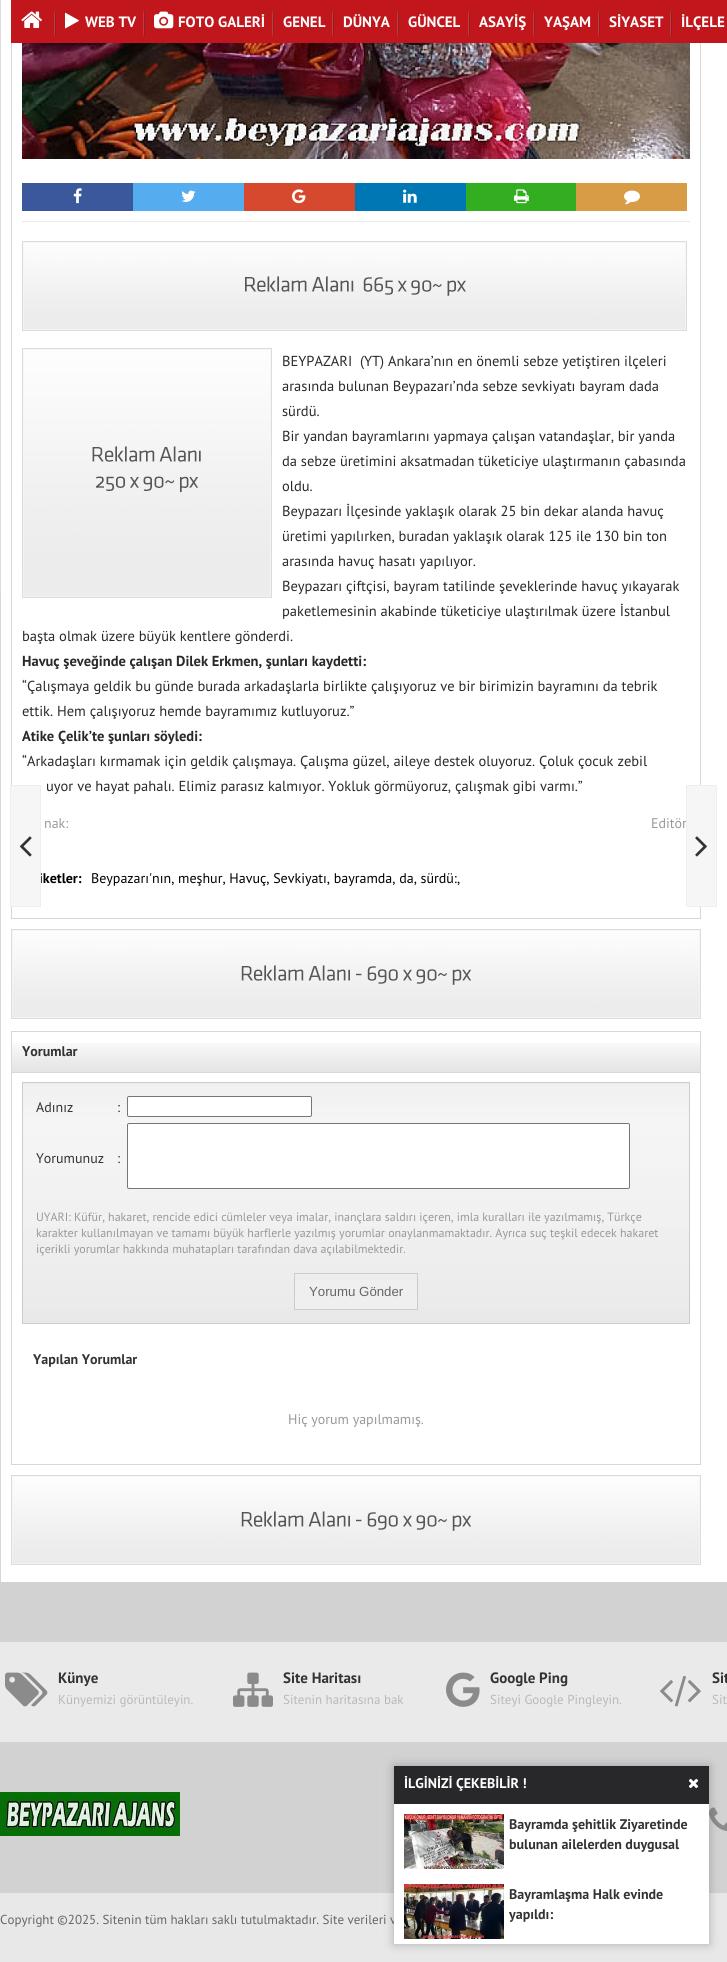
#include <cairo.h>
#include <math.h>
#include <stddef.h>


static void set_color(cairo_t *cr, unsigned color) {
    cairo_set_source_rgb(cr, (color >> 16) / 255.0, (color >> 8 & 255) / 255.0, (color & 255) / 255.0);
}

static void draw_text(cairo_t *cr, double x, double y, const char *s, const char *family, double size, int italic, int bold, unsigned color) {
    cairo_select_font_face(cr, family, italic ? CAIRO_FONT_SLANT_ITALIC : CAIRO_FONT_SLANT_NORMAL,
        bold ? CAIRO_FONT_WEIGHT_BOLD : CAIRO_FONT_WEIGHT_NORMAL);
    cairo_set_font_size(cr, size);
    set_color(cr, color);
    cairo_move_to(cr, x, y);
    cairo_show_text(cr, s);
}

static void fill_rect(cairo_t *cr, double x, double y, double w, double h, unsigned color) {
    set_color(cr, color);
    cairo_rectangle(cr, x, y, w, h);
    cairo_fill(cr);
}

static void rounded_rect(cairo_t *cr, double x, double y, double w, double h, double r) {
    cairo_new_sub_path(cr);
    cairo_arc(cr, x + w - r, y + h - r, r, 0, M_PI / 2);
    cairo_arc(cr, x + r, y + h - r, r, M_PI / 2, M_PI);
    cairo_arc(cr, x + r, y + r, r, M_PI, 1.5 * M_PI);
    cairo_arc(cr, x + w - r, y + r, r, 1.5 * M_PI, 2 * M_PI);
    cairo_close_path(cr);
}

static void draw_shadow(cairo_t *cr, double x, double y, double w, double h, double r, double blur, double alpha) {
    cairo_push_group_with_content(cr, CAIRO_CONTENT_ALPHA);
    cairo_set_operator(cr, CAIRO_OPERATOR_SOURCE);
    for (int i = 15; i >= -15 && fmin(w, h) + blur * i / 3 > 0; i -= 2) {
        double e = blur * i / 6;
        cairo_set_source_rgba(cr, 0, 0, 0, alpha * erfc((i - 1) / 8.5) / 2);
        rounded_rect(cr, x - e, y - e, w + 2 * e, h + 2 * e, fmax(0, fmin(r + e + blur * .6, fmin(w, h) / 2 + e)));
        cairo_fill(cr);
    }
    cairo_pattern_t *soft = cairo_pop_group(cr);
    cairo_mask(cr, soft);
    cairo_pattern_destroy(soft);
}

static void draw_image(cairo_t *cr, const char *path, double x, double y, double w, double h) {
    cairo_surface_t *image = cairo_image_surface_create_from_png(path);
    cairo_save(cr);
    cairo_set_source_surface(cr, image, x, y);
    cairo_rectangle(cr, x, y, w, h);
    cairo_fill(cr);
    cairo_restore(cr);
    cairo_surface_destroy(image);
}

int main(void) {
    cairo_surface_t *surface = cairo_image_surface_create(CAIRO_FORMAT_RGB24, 727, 1962);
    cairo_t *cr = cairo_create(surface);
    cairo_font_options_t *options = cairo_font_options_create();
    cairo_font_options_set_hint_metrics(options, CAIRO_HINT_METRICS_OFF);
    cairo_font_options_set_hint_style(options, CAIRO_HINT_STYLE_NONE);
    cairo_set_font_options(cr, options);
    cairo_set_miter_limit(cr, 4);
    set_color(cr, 0xE8E8E8);
    cairo_paint(cr);
    fill_rect(cr, 1, 0, 726, 1582, 0xFFFFFF);
    fill_rect(cr, 0, 595, 1, 987, 0xD7D7D7);
    fill_rect(cr, 0, 0, 1, 595, 0xDCDCDC);
    fill_rect(cr, 11, 0, 716, 43, 0xC0161C);
    draw_image(cr, "assets/img1.png", 21, 11, 21, 17);
    draw_image(cr, "assets/img2.png", 54, 9, 2, 27);
    draw_image(cr, "assets/img3.png", 65, 12, 15, 17);
    draw_text(cr, 85, 27, "WEB TV", "PT Sans", 15, 0, 1, 0xFFFFFF);
    draw_image(cr, "assets/img2.png", 143, 9, 2, 27);
    draw_image(cr, "assets/img4.png", 154, 11, 20, 18);
    draw_text(cr, 178, 27, "FOTO GALERİ", "PT Sans", 15, 0, 1, 0xFFFFFF);
    draw_image(cr, "assets/img2.png", 272, 9, 2, 27);
    draw_text(cr, 283, 27, "GENEL", "PT Sans", 15, 0, 1, 0xFFFFFF);
    draw_image(cr, "assets/img2.png", 332, 9, 2, 27);
    draw_text(cr, 343, 27, "DÜNYA", "PT Sans", 15, 0, 1, 0xFFFFFF);
    draw_image(cr, "assets/img2.png", 397, 9, 2, 27);
    draw_text(cr, 408, 27, "GÜNCEL", "PT Sans", 15, 0, 1, 0xFFFFFF);
    draw_image(cr, "assets/img2.png", 468, 9, 2, 27);
    draw_text(cr, 479, 27, "ASAYİŞ", "PT Sans", 15, 0, 1, 0xFFFFFF);
    draw_image(cr, "assets/img2.png", 533, 9, 2, 27);
    draw_text(cr, 544, 27, "YAŞAM", "PT Sans", 15, 0, 1, 0xFFFFFF);
    draw_image(cr, "assets/img2.png", 598, 9, 2, 27);
    draw_text(cr, 609, 27, "SİYASET", "PT Sans", 15, 0, 1, 0xFFFFFF);
    draw_image(cr, "assets/img2.png", 670, 9, 2, 27);
    draw_text(cr, 681, 27, "İLÇELE", "PT Sans", 15, 0, 1, 0xFFFFFF);
    fill_rect(cr, 700, 43, 1, 876, 0xD7D7D7);
    fill_rect(cr, 11, 918, 690, 1, 0xD7D7D7);
    fill_rect(cr, 11, 43, 1, 876, 0xD7D7D7);
    draw_image(cr, "assets/img5.png", 22, 43, 668, 116);
    fill_rect(cr, 22, 221, 668, 1, 0xEBEBEB);
    fill_rect(cr, 22, 183, 111, 28, 0x3A589B);
    draw_image(cr, "assets/img6.png", 73, 188, 9, 16);
    fill_rect(cr, 133, 183, 111, 28, 0x55ACEE);
    draw_image(cr, "assets/img7.png", 181, 190, 15, 12);
    fill_rect(cr, 244, 183, 111, 28, 0xD6492F);
    draw_image(cr, "assets/img8.png", 292, 189, 14, 15);
    fill_rect(cr, 355, 183, 111, 28, 0x0077B5);
    draw_image(cr, "assets/img9.png", 403, 189, 14, 14);
    fill_rect(cr, 466, 183, 110, 28, 0x33AE20);
    draw_image(cr, "assets/img10.png", 514, 189, 15, 15);
    fill_rect(cr, 576, 183, 111, 28, 0xD99C46);
    draw_image(cr, "assets/img11.png", 624, 190, 16, 15);
    draw_image(cr, "assets/img12.png", 22, 241, 665, 90);
    draw_image(cr, "assets/img13.png", 22, 348, 250, 250);
    draw_text(cr, 282, 366, "BEYPAZARI  (YT) Ankara’nın en önemli sebze yetiştiren ilçeleri", "PT Sans", 14.5, 0, 0, 0x292929);
    draw_text(cr, 282, 391, "arasında bulunan Beypazarı’nda sebze sevkiyatı bayram dada", "PT Sans", 14.5, 0, 0, 0x292929);
    draw_text(cr, 282, 416, "sürdü.", "PT Sans", 14.5, 0, 0, 0x292929);
    draw_text(cr, 282, 441, "Bir yandan bayramlarını yapmaya çalışan vatandaşlar, bir yanda", "PT Sans", 14.5, 0, 0, 0x292929);
    draw_text(cr, 282, 466, "da sebze üretimini aksatmadan tüketiciye ulaştırmanın çabasında", "PT Sans", 14.5, 0, 0, 0x292929);
    draw_text(cr, 282, 491, "oldu.", "PT Sans", 14.5, 0, 0, 0x292929);
    draw_text(cr, 282, 516, "Beypazarı İlçesinde yaklaşık olarak 25 bin dekar alanda havuç", "PT Sans", 14.5, 0, 0, 0x292929);
    draw_text(cr, 282, 541, "üretimi yapılırken, buradan yaklaşık olarak 125 ile 130 bin ton", "PT Sans", 14.5, 0, 0, 0x292929);
    draw_text(cr, 282, 566, "arasında havuç hasatı yapılıyor.", "PT Sans", 14.5, 0, 0, 0x292929);
    draw_text(cr, 282, 591, "Beypazarı çiftçisi, bayram tatilinde şeveklerinde havuç yıkayarak", "PT Sans", 14.5, 0, 0, 0x292929);
    draw_text(cr, 282, 616, "paketlemesinin akabinde tüketiciye ulaştırılmak üzere İstanbul", "PT Sans", 14.5, 0, 0, 0x292929);
    draw_text(cr, 22, 641, "başta olmak üzere büyük kentlere gönderdi.", "PT Sans", 14.5, 0, 0, 0x292929);
    draw_text(cr, 22, 666, "Havuç şeveğinde çalışan Dilek Erkmen, şunları kaydetti:", "PT Sans", 14.5, 0, 1, 0x292929);
    draw_text(cr, 22, 691, "“Çalışmaya geldik bu günde burada arkadaşlarla birlikte çalışıyoruz ve bir birimizin bayramını da tebrik", "PT Sans", 14.5, 0, 0, 0x292929);
    draw_text(cr, 22, 716, "ettik. Hem çalışıyoruz hemde bayramımız kutluyoruz.”", "PT Sans", 14.5, 0, 0, 0x292929);
    draw_text(cr, 22, 741, "Atike Çelik’te şunları söyledi:", "PT Sans", 14.5, 0, 1, 0x292929);
    draw_text(cr, 22, 766, "“Arkadaşları kırmamak için geldik çalışmaya. Çalışma güzel, aileye destek oluyoruz. Çoluk çocuk zebil", "PT Sans", 14.5, 0, 0, 0x292929);
    draw_text(cr, 46, 791, "uyor ve hayat pahalı. Elimiz parasız kalmıyor. Yokluk görmüyoruz, çalışmak gibi varmı.”", "PT Sans", 14.5, 0, 0, 0x292929);
    draw_text(cr, 44, 828, "nak:", "PT Sans", 14, 0, 0, 0x999999);
    draw_text(cr, 651, 828, "Editör", "PT Sans", 14, 0, 0, 0x999999);
    draw_text(cr, 39, 883, "iketler:", "PT Sans", 14, 0, 1, 0x000000);
    draw_text(cr, 91, 883, "Beypazarı'nın, meşhur, Havuç, Sevkiyatı, bayramda, da, sürdü:,", "PT Sans", 14, 0, 0, 0x000000);
    draw_image(cr, "assets/img14.png", 11, 929, 690, 90);
    draw_image(cr, "assets/img15.png", 12, 1043, 688, 29);
    cairo_rectangle(cr, 11.5, 1031.5, 689, 41);
    set_color(cr, 0xD7D7D7);
    cairo_set_line_width(cr, 1);
    cairo_stroke(cr);
    draw_text(cr, 22, 1056, "Yorumlar", "PT Sans", 14, 0, 1, 0x333333);
    fill_rect(cr, 700, 1073, 1, 392, 0xD7D7D7);
    fill_rect(cr, 11, 1464, 690, 1, 0xD7D7D7);
    fill_rect(cr, 11, 1073, 1, 392, 0xD7D7D7);
    draw_image(cr, "assets/img16.png", 23, 1083, 666, 240);
    fill_rect(cr, 22, 1082, 668, 1, 0xCCCCCC);
    fill_rect(cr, 689, 1082, 1, 242, 0xCCCCCC);
    fill_rect(cr, 22, 1323, 668, 1, 0xCCCCCC);
    fill_rect(cr, 22, 1082, 1, 242, 0xCCCCCC);
    draw_text(cr, 36, 1112, "Adınız", "PT Sans", 14, 0, 0, 0x333333);
    draw_text(cr, 117, 1112, ":", "PT Sans", 14, 0, 0, 0x333333);
    set_color(cr, 0xFFFFFF);
    rounded_rect(cr, 127.5, 1096.5, 184, 20, 1.5);
    cairo_fill_preserve(cr);
    set_color(cr, 0x767676);
    cairo_stroke(cr);
    draw_text(cr, 36, 1163, "Yorumunuz", "PT Sans", 14, 0, 0, 0x333333);
    draw_text(cr, 117, 1163, ":", "PT Sans", 14, 0, 0, 0x333333);
    set_color(cr, 0xFFFFFF);
    rounded_rect(cr, 127.5, 1123.5, 502, 65, 1.5);
    cairo_fill_preserve(cr);
    set_color(cr, 0x767676);
    cairo_stroke(cr);
    draw_text(cr, 36, 1221, "UYARI: Küfür, hakaret, rencide edici cümleler veya imalar, inançlara saldırı içeren, imla kuralları ile yazılmamış, Türkçe", "PT Sans", 12, 0, 0, 0x999999);
    draw_text(cr, 36, 1237, "karakter kullanılmayan ve tamamı büyük harflerle yazılmış yorumlar onaylanmamaktadır. Ayrıca suç teşkil edecek hakaret", "PT Sans", 12, 0, 0, 0x999999);
    draw_text(cr, 36, 1253, "içerikli yorumlar hakkında muhatapları tarafından dava açılabilmektedir.", "PT Sans", 12, 0, 0, 0x999999);
    fill_rect(cr, 295, 1280, 122, 29, 0xEFEFEF);
    cairo_rectangle(cr, 294.5, 1273.5, 123, 36);
    set_color(cr, 0xCCCCCC);
    cairo_stroke(cr);
    draw_text(cr, 309, 1296, "Yorumu Gönder", "Liberation Sans", 13.25, 0, 0, 0x666666);
    draw_text(cr, 33, 1364, "Yapılan Yorumlar", "PT Sans", 14, 0, 1, 0x333333);
    draw_text(cr, 288, 1424, "Hiç yorum yapılmamış.", "PT Sans", 14, 0, 0, 0x999999);
    set_color(cr, 0xF6F6F6);
    cairo_rectangle(cr, 10.5, 785.5, 30, 121);
    cairo_fill_preserve(cr);
    set_color(cr, 0xEEEEEE);
    cairo_stroke(cr);
    draw_image(cr, "assets/img17.png", 19, 836, 13, 21);
    set_color(cr, 0xF6F6F6);
    cairo_rectangle(cr, 686.5, 785.5, 30, 121);
    cairo_fill_preserve(cr);
    set_color(cr, 0xEEEEEE);
    cairo_stroke(cr);
    draw_image(cr, "assets/img18.png", 695, 836, 12, 21);
    fill_rect(cr, 0, 1582, 727, 311, 0xD2D2D2);
    draw_image(cr, "assets/img27.png", 709, 1807, 18, 24);
    set_color(cr, 0x3C3C3C);
    draw_shadow(cr, 394, 1766, 315, 178, 0, 5, 0.35);
    draw_text(cr, 0, 1924, "Copyright ©2025. Sitenin tüm hakları saklı tutulmaktadır. Site verileri v", "PT Sans", 13, 0, 0, 0x666666);
    fill_rect(cr, 394, 1804, 315, 140, 0xFFFFFF);
    fill_rect(cr, 394, 1766, 315, 38, 0x28282A);
    draw_text(cr, 404, 1788, "İLGİNİZİ ÇEKEBİLİR !", "PT Sans", 14, 0, 1, 0xFFFFFF);
    draw_image(cr, "assets/img19.png", 688, 1778, 11, 11);
    draw_image(cr, "assets/img20.png", 404, 1814, 100, 55);
    draw_text(cr, 509, 1829, "Bayramda şehitlik Ziyaretinde", "PT Sans", 14, 0, 1, 0x333333);
    draw_text(cr, 509, 1849, "bulunan ailelerden duygusal", "PT Sans", 14, 0, 1, 0x333333);
    draw_image(cr, "assets/img21.png", 404, 1884, 100, 55);
    draw_text(cr, 509, 1899, "Bayramlaşma Halk evinde", "PT Sans", 14, 0, 1, 0x333333);
    draw_text(cr, 509, 1919, "yapıldı:", "PT Sans", 14, 0, 1, 0x333333);
    draw_image(cr, "assets/img14.png", 11, 1475, 690, 90);
    fill_rect(cr, 0, 1642, 727, 100, 0xEAEAEA);
    draw_image(cr, "assets/img22.png", 5, 1672, 43, 35);
    draw_text(cr, 58, 1683, "Künye", "PT Sans", 15, 0, 1, 0x333333);
    draw_text(cr, 58, 1704, "Künyemizi görüntüleyin.", "PT Sans", 13, 0, 0, 0xB9B9B9);
    draw_image(cr, "assets/img23.png", 233, 1672, 40, 35);
    draw_text(cr, 283, 1683, "Site Haritası", "PT Sans", 15, 0, 1, 0x333333);
    draw_text(cr, 283, 1704, "Sitenin haritasına bak", "PT Sans", 13, 0, 0, 0xB9B9B9);
    draw_image(cr, "assets/img24.png", 446, 1672, 34, 35);
    draw_text(cr, 490, 1683, "Google Ping", "PT Sans", 15, 0, 1, 0x333333);
    draw_text(cr, 490, 1704, "Siteyi Google Pingleyin.", "PT Sans", 13, 0, 0, 0xB9B9B9);
    draw_image(cr, "assets/img25.png", 660, 1675, 41, 32);
    draw_text(cr, 712, 1683, "Sit", "PT Sans", 15, 0, 1, 0x333333);
    draw_text(cr, 712, 1704, "Sit", "PT Sans", 13, 0, 0, 0xB9B9B9);
    draw_image(cr, "assets/img26.png", 0, 1792, 180, 44);
    cairo_surface_write_to_png(surface, "output.png");
    cairo_font_options_destroy(options);
    cairo_destroy(cr);
    cairo_surface_destroy(surface);
    return 0;
}
